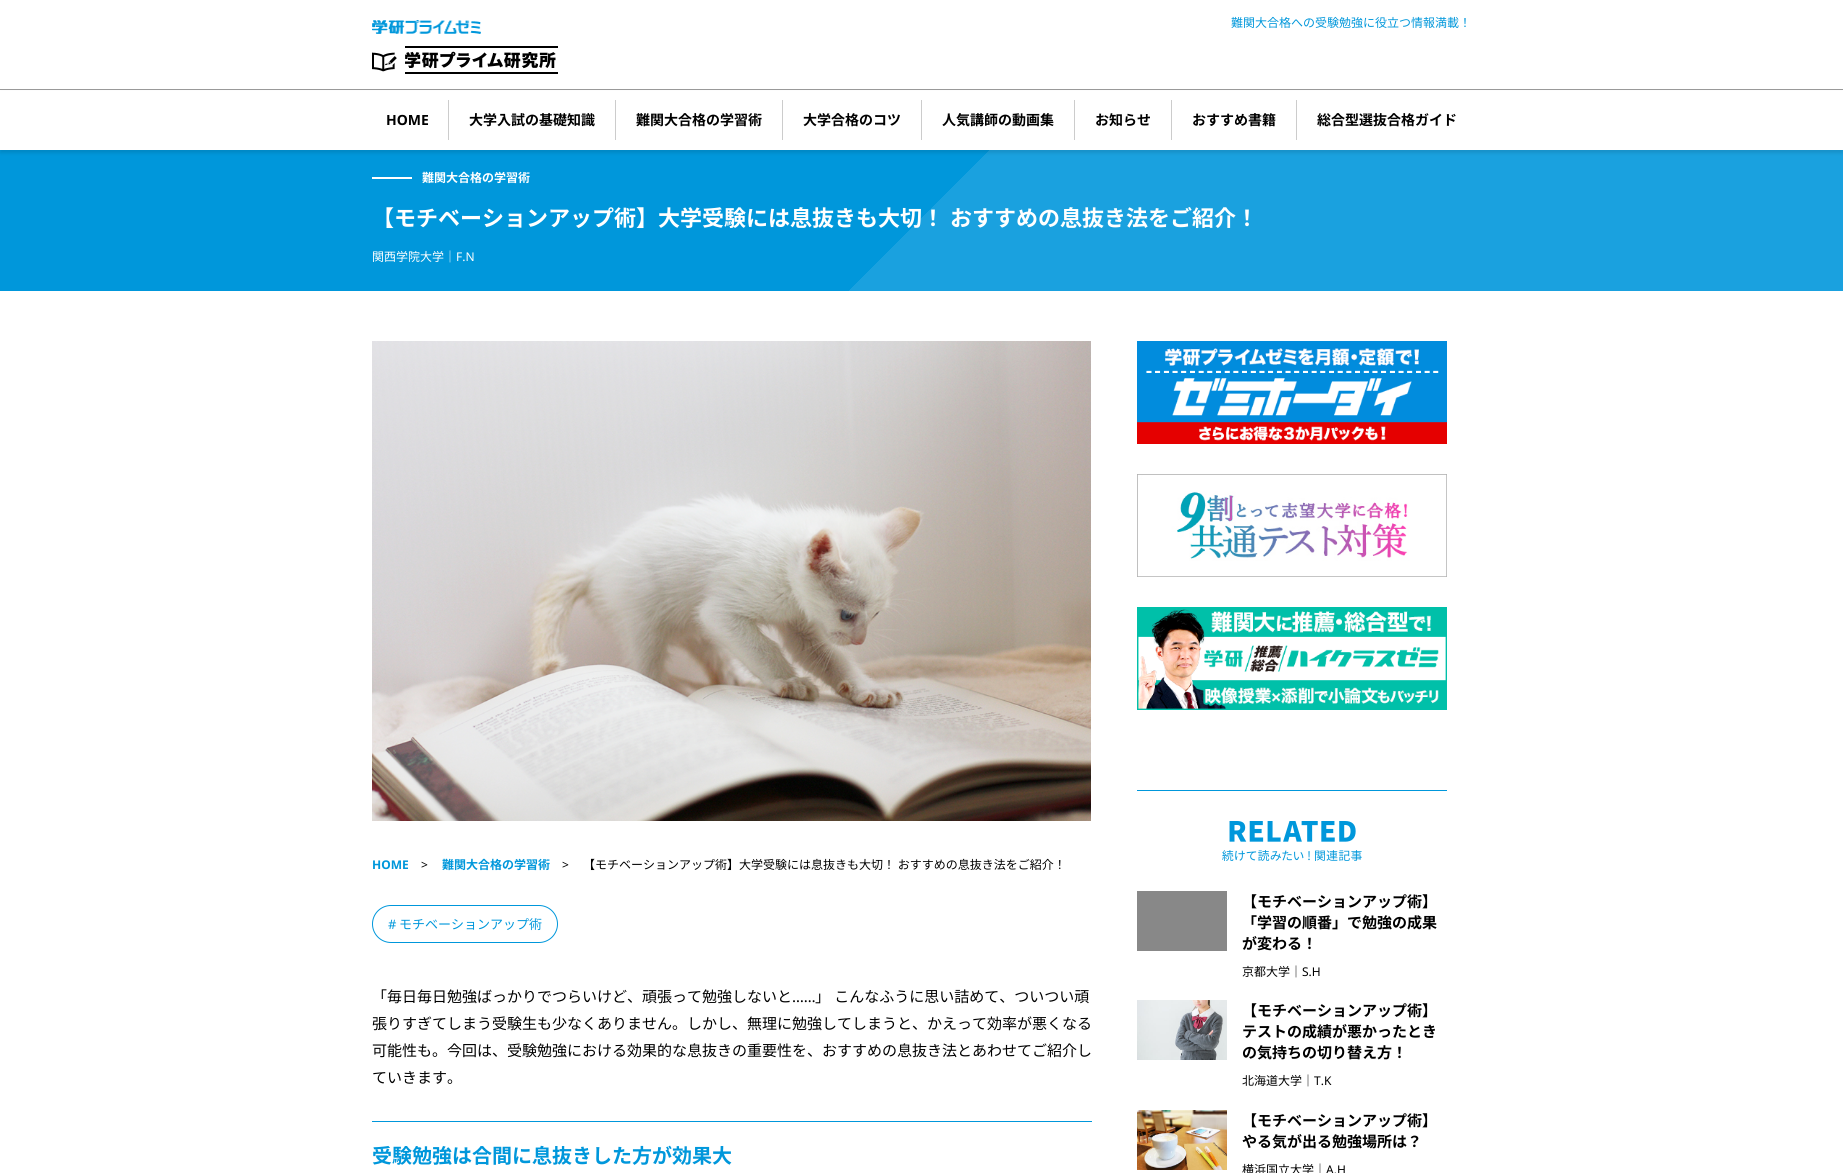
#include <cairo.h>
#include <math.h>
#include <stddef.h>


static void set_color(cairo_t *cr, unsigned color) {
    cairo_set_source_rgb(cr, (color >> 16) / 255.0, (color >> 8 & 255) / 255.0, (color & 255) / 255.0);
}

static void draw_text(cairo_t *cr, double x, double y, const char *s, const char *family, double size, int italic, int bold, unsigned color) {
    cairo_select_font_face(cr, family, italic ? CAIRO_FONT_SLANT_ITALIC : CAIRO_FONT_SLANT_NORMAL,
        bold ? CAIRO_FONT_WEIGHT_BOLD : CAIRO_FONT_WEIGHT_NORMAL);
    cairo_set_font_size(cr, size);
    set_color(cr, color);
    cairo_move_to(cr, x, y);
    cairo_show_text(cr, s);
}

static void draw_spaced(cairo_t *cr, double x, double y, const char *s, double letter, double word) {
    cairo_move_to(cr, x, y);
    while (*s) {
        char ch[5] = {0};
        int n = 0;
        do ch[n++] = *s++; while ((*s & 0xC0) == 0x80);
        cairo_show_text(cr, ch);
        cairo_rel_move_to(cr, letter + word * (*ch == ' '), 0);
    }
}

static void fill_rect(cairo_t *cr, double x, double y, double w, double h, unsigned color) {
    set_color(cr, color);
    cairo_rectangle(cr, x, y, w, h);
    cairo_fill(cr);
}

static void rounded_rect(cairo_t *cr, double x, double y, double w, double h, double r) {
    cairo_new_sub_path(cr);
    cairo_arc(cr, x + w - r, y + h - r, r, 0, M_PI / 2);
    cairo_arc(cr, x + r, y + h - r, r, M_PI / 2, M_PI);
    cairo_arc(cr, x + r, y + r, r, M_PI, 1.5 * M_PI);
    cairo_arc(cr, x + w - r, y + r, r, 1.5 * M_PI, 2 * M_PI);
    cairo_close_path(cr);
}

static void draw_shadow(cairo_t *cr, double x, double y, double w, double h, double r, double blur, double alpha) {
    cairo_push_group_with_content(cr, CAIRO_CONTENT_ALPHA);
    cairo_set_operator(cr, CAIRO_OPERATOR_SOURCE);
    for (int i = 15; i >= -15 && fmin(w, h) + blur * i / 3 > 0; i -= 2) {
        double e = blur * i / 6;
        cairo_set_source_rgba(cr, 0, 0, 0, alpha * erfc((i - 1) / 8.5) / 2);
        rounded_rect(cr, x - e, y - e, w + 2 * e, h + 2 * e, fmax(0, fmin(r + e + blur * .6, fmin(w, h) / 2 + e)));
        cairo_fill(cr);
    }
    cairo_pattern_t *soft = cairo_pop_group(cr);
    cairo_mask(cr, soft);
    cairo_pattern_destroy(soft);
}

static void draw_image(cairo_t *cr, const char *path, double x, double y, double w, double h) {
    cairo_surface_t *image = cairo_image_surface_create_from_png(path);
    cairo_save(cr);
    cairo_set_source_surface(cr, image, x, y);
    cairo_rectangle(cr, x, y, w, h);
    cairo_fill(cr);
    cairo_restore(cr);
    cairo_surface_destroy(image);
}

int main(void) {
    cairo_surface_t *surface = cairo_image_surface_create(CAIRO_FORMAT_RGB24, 1843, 1173);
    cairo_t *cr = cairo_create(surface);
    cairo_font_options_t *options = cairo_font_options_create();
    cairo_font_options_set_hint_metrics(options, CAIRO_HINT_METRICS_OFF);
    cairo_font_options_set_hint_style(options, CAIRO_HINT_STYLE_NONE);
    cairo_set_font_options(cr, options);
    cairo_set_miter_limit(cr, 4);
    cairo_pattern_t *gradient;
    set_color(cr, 0xFFFFFF);
    cairo_paint(cr);
    fill_rect(cr, 0, 89, 1843, 1, 0x999999);
    draw_image(cr, "assets/img1.png", 372, 20, 109, 14);
    draw_image(cr, "assets/img2.png", 372, 46, 186, 28);
    draw_text(cr, 1231, 27, "難関大合格への受験勉強に役立つ情報満載！", "Noto Sans CJK JP", 12, 0, 0, 0x0097DB);
    gradient = cairo_pattern_create_linear(1419, 715, 424, -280);
    cairo_pattern_add_color_stop_rgba(gradient, 0, 0.102, 0.631, 0.875, 1);
    cairo_pattern_add_color_stop_rgba(gradient, 0.5, 0.102, 0.631, 0.875, 1);
    cairo_pattern_add_color_stop_rgba(gradient, 0.5, 0, 0.592, 0.859, 1);
    cairo_pattern_add_color_stop_rgba(gradient, 1, 0, 0.592, 0.859, 1);
    cairo_set_source(cr, gradient);
    cairo_pattern_destroy(gradient);
    cairo_rectangle(cr, 0, 150, 1843, 141);
    cairo_fill(cr);
    set_color(cr, 0x000000);
    draw_shadow(cr, 0, 93, 1843, 60, 0, 1.5, 0.1);
    fill_rect(cr, 0, 91, 1843, 59, 0xFFFFFF);
    draw_text(cr, 386, 125, "HOME", "Noto Sans", 14, 0, 1, 0x000000);
    fill_rect(cr, 448, 100, 1, 40, 0xCCCCCC);
    draw_text(cr, 469, 125, "大学入試の基礎知識", "Noto Sans CJK JP", 14, 0, 1, 0x000000);
    fill_rect(cr, 615, 100, 1, 40, 0xCCCCCC);
    draw_text(cr, 636, 125, "難関大合格の学習術", "Noto Sans CJK JP", 14, 0, 1, 0x000000);
    fill_rect(cr, 782, 100, 1, 40, 0xCCCCCC);
    draw_text(cr, 803, 125, "大学合格のコツ", "Noto Sans CJK JP", 14, 0, 1, 0x000000);
    fill_rect(cr, 921, 100, 1, 40, 0xCCCCCC);
    draw_text(cr, 942, 125, "人気講師の動画集", "Noto Sans CJK JP", 14, 0, 1, 0x000000);
    fill_rect(cr, 1074, 100, 1, 40, 0xCCCCCC);
    draw_text(cr, 1095, 125, "お知らせ", "Noto Sans CJK JP", 14, 0, 1, 0x000000);
    fill_rect(cr, 1171, 100, 1, 40, 0xCCCCCC);
    draw_text(cr, 1192, 125, "おすすめ書籍", "Noto Sans CJK JP", 14, 0, 1, 0x000000);
    fill_rect(cr, 1296, 100, 1, 40, 0xCCCCCC);
    draw_text(cr, 1317, 125, "総合型選抜合格ガイド", "Noto Sans CJK JP", 14, 0, 1, 0x000000);
    fill_rect(cr, 372, 177, 40, 2, 0xFFFFFF);
    draw_text(cr, 422, 182, "難関大合格の学習術", "Noto Sans CJK JP", 12, 0, 1, 0xFFFFFF);
    cairo_set_font_size(cr, 22);
    draw_spaced(cr, 372, 226, "【モチベーションアップ術】大学受験には息抜きも大切！ おすすめの息抜き法をご紹介！", 0, 1);
    draw_text(cr, 372, 261, "関西学院大学｜", "Noto Sans CJK JP", 12, 0, 0, 0xFFFFFF);
    draw_text(cr, 456, 261, "F.N", "Noto Sans", 12, 0, 0, 0xFFFFFF);
    draw_image(cr, "assets/img3.png", 372, 341, 719, 480);
    draw_text(cr, 372, 869, "HOME", "Noto Sans", 12, 0, 1, 0x0097DB);
    draw_text(cr, 421, 869, ">", "Noto Sans", 12, 0, 0, 0x000000);
    draw_text(cr, 442, 869, "難関大合格の学習術", "Noto Sans CJK JP", 12, 0, 1, 0x0097DB);
    draw_text(cr, 562, 869, ">", "Noto Sans", 12, 0, 0, 0x000000);
    draw_text(cr, 583, 869, "【モチベーションアップ術】大学受験には息抜きも大切！ おすすめの息抜き法をご紹介！", "Noto Sans CJK JP", 12, 0, 0, 0x000000);
    rounded_rect(cr, 372.5, 905.5, 185, 37, 18.5);
    set_color(cr, 0x0097DB);
    cairo_set_line_width(cr, 1);
    cairo_stroke(cr);
    draw_text(cr, 388, 929, "#", "Noto Sans", 13, 0, 0, 0x0097DB);
    draw_text(cr, 399, 929, "モチベーションアップ術", "Noto Sans CJK JP", 13, 0, 0, 0x0097DB);
    draw_text(cr, 372, 1002, "「毎日毎日勉強ばっかりでつらいけど、頑張って勉強しないと", "Noto Sans CJK JP", 15, 0, 0, 0x000000);
    draw_text(cr, 792, 1002, "……", "Noto Sans", 15, 0, 0, 0x000000);
    cairo_select_font_face(cr, "Noto Sans CJK JP", CAIRO_FONT_SLANT_NORMAL, CAIRO_FONT_WEIGHT_NORMAL);
    draw_spaced(cr, 815, 1002, "」 こんなふうに思い詰めて、ついつい頑", 0, 1);
    draw_text(cr, 372, 1029, "張りすぎてしまう受験生も少なくありません。しかし、無理に勉強してしまうと、かえって効率が悪くなる", "Noto Sans CJK JP", 15, 0, 0, 0x000000);
    draw_text(cr, 372, 1056, "可能性も。今回は、受験勉強における効果的な息抜きの重要性を、おすすめの息抜き法とあわせてご紹介し", "Noto Sans CJK JP", 15, 0, 0, 0x000000);
    draw_text(cr, 372, 1083, "ていきます。", "Noto Sans CJK JP", 15, 0, 0, 0x000000);
    fill_rect(cr, 372, 1121, 720, 1, 0x0097DB);
    draw_text(cr, 372, 1163, "受験勉強は合間に息抜きした方が効果大", "Noto Sans CJK JP", 20, 0, 1, 0x0097DB);
    draw_image(cr, "assets/img4.png", 1137, 341, 310, 103);
    draw_image(cr, "assets/img5.png", 1137, 474, 310, 103);
    draw_image(cr, "assets/img6.png", 1137, 607, 310, 103);
    fill_rect(cr, 1137, 790, 310, 1, 0x0097DB);
    draw_image(cr, "assets/img7.png", 1222, 821, 140, 40);
    fill_rect(cr, 1137, 891, 90, 60, 0x888888);
    draw_text(cr, 1242, 907, "【モチベーションアップ術】", "Noto Sans CJK JP", 15, 0, 1, 0x000000);
    draw_text(cr, 1242, 928, "「学習の順番」で勉強の成果", "Noto Sans CJK JP", 15, 0, 1, 0x000000);
    draw_text(cr, 1242, 949, "が変わる！", "Noto Sans CJK JP", 15, 0, 1, 0x000000);
    draw_text(cr, 1242, 976, "京都大学｜", "Noto Sans CJK JP", 12, 0, 0, 0x000000);
    draw_text(cr, 1302, 976, "S.H", "Noto Sans", 12, 0, 0, 0x000000);
    draw_image(cr, "assets/img8.png", 1137, 1000, 90, 60);
    draw_text(cr, 1242, 1016, "【モチベーションアップ術】", "Noto Sans CJK JP", 15, 0, 1, 0x000000);
    draw_text(cr, 1242, 1037, "テストの成績が悪かったとき", "Noto Sans CJK JP", 15, 0, 1, 0x000000);
    draw_text(cr, 1242, 1058, "の気持ちの切り替え方！", "Noto Sans CJK JP", 15, 0, 1, 0x000000);
    draw_text(cr, 1242, 1085, "北海道大学｜", "Noto Sans CJK JP", 12, 0, 0, 0x000000);
    draw_text(cr, 1314, 1085, "T.K", "Noto Sans", 12, 0, 0, 0x000000);
    draw_image(cr, "assets/img9.png", 1137, 1110, 90, 60);
    draw_text(cr, 1242, 1126, "【モチベーションアップ術】", "Noto Sans CJK JP", 15, 0, 1, 0x000000);
    draw_text(cr, 1242, 1147, "やる気が出る勉強場所は？", "Noto Sans CJK JP", 15, 0, 1, 0x000000);
    draw_text(cr, 1242, 1174, "横浜国立大学｜", "Noto Sans CJK JP", 12, 0, 0, 0x000000);
    draw_text(cr, 1326, 1174, "A.H", "Noto Sans", 12, 0, 0, 0x000000);
    cairo_surface_write_to_png(surface, "output.png");
    cairo_font_options_destroy(options);
    cairo_destroy(cr);
    cairo_surface_destroy(surface);
    return 0;
}
